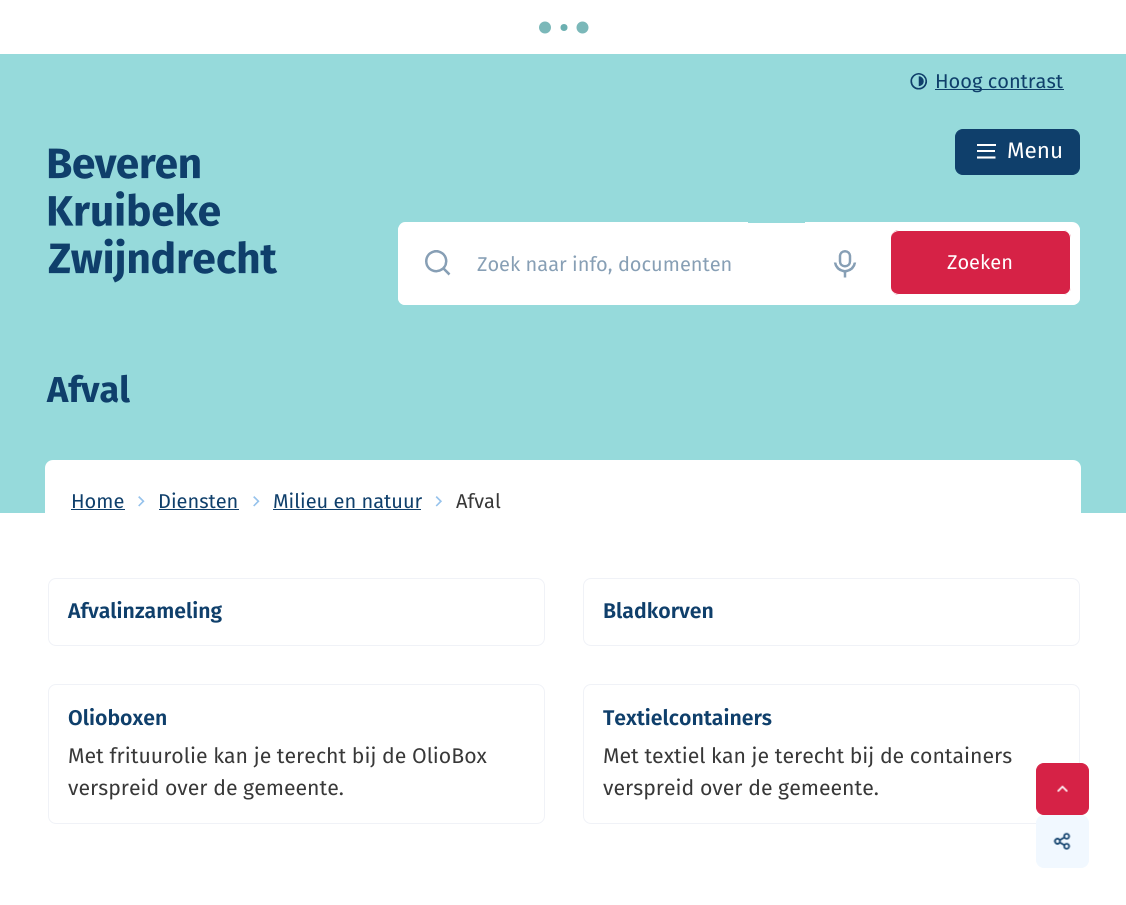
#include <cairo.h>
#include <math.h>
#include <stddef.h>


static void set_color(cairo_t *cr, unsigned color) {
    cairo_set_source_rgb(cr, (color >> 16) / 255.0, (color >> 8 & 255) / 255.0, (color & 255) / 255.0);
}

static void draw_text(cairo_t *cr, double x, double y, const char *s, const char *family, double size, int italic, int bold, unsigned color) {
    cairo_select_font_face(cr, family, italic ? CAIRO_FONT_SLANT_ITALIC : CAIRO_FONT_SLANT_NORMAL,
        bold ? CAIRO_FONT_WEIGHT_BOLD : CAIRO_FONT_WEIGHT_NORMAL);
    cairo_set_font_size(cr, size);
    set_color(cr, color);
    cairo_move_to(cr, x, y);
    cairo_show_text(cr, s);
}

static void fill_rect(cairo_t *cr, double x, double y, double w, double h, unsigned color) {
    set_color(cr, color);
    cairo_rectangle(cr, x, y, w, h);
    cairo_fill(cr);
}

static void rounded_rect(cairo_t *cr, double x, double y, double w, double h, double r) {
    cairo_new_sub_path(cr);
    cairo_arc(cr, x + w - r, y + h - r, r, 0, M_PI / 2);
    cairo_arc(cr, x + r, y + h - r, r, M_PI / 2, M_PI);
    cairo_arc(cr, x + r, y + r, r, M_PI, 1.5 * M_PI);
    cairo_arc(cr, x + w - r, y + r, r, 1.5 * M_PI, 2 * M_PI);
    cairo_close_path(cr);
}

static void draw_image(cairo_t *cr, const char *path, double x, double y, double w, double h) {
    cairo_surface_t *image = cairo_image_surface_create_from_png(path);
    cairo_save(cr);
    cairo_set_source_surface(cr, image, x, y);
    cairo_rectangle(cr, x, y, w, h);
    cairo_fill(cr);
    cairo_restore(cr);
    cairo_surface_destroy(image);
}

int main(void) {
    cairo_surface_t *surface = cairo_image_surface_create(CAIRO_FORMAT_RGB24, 1126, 905);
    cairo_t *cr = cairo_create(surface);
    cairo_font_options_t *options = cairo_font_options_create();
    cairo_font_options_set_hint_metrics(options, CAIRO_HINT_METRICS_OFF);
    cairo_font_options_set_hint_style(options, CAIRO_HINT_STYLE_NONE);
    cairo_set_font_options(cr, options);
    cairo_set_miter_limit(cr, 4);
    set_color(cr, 0xFFFFFF);
    cairo_paint(cr);
    set_color(cr, 0x7BB8B9);
    cairo_arc(cr, 545, 27.5, 6, 0, 2 * M_PI);
    cairo_fill(cr);
    set_color(cr, 0x6CB0B1);
    cairo_arc(cr, 564, 27.5, 3.5, 0, 2 * M_PI);
    cairo_fill(cr);
    set_color(cr, 0x7BB8B9);
    cairo_arc(cr, 582.5, 27.5, 6, 0, 2 * M_PI);
    cairo_fill(cr);
    fill_rect(cr, 0, 54, 1126, 459, 0x96DADB);
    draw_image(cr, "assets/img1.png", 910, 73, 18, 17);
    fill_rect(cr, 935, 89, 129, 1, 0x0F3F6B);
    draw_text(cr, 935, 88, "Hoog contrast", "Fira Sans", 20, 0, 0, 0x0F3F6B);
    draw_image(cr, "assets/img2.png", 48, 148, 230, 135);
    rounded_rect(cr, 955.5, 129.5, 124, 45, 7.5);
    cairo_fill_preserve(cr);
    cairo_set_line_width(cr, 1);
    cairo_stroke(cr);
    fill_rect(cr, 977, 144, 19, 2, 0xFFFFFF);
    fill_rect(cr, 977, 150, 18, 2, 0xFFFFFF);
    cairo_new_path(cr);
    cairo_move_to(cr, 977, 157.5);
    cairo_line_to(cr, 995.5, 157.5);
    cairo_set_line_width(cr, 2.1);
    cairo_stroke(cr);
    draw_text(cr, 1007, 158, "Menu", "Fira Sans", 22.5, 0, 0, 0xFFFFFF);
    cairo_new_path(cr);
    cairo_move_to(cr, 406, 223);
    cairo_line_to(cr, 748, 223);
    cairo_line_to(cr, 748, 305);
    cairo_line_to(cr, 406, 305);
    cairo_curve_to(cr, 401.5, 305, 398, 301.5, 398, 297);
    cairo_line_to(cr, 398, 231);
    cairo_curve_to(cr, 398, 226.5, 401.5, 223, 406, 223);
    cairo_close_path(cr);
    cairo_fill(cr);
    cairo_set_fill_rule(cr, CAIRO_FILL_RULE_EVEN_ODD);
    cairo_new_path(cr);
    cairo_move_to(cr, 405, 222);
    cairo_line_to(cr, 748, 222);
    cairo_line_to(cr, 748, 305);
    cairo_line_to(cr, 405, 305);
    cairo_curve_to(cr, 401, 305, 398, 302, 398, 298);
    cairo_line_to(cr, 398, 230);
    cairo_curve_to(cr, 398, 226, 401, 222, 405, 222);
    cairo_close_path(cr);
    cairo_move_to(cr, 405, 224);
    cairo_line_to(cr, 748, 224);
    cairo_line_to(cr, 748, 304);
    cairo_line_to(cr, 405, 304);
    cairo_curve_to(cr, 402, 304, 399, 301, 399, 298);
    cairo_line_to(cr, 399, 230);
    cairo_curve_to(cr, 399, 227, 402, 224, 405, 224);
    cairo_close_path(cr);
    cairo_fill(cr);
    draw_image(cr, "assets/img3.png", 425, 250, 26, 26);
    draw_text(cr, 477, 271, "Zoek naar info, documenten", "Fira Sans", 20, 0, 0, 0x879FB5);
    fill_rect(cr, 748, 223, 57, 82, 0xFFFFFF);
    cairo_new_path(cr);
    cairo_move_to(cr, 805, 223);
    cairo_line_to(cr, 1072, 223);
    cairo_curve_to(cr, 1076.5, 223, 1080, 226.5, 1080, 231);
    cairo_line_to(cr, 1080, 297);
    cairo_curve_to(cr, 1080, 301.5, 1076.5, 305, 1072, 305);
    cairo_line_to(cr, 805, 305);
    cairo_close_path(cr);
    cairo_fill(cr);
    cairo_new_path(cr);
    cairo_move_to(cr, 805, 222);
    cairo_line_to(cr, 1072, 222);
    cairo_curve_to(cr, 1077, 222, 1080, 226, 1080, 230);
    cairo_line_to(cr, 1080, 298);
    cairo_curve_to(cr, 1080, 302, 1077, 305, 1072, 305);
    cairo_line_to(cr, 805, 305);
    cairo_close_path(cr);
    cairo_move_to(cr, 805, 224);
    cairo_line_to(cr, 1072, 224);
    cairo_curve_to(cr, 1076, 224, 1079, 227, 1079, 230);
    cairo_line_to(cr, 1079, 298);
    cairo_curve_to(cr, 1079, 301, 1076, 304, 1072, 304);
    cairo_line_to(cr, 805, 304);
    cairo_close_path(cr);
    cairo_fill(cr);
    draw_image(cr, "assets/img4.png", 833, 250, 24, 28);
    set_color(cr, 0xD62246);
    rounded_rect(cr, 891, 230, 180, 65, 8);
    cairo_fill(cr);
    set_color(cr, 0xFFFFFF);
    cairo_new_path(cr);
    cairo_move_to(cr, 899, 230);
    cairo_line_to(cr, 1064, 230);
    cairo_curve_to(cr, 1068, 230, 1071, 233, 1071, 238);
    cairo_line_to(cr, 1071, 288);
    cairo_curve_to(cr, 1071, 292, 1068, 295, 1064, 295);
    cairo_line_to(cr, 899, 295);
    cairo_curve_to(cr, 895, 295, 891, 292, 891, 288);
    cairo_line_to(cr, 891, 238);
    cairo_curve_to(cr, 891, 233, 895, 230, 899, 230);
    cairo_close_path(cr);
    cairo_move_to(cr, 899, 231);
    cairo_line_to(cr, 1064, 231);
    cairo_curve_to(cr, 1067, 231, 1070, 234, 1070, 238);
    cairo_line_to(cr, 1070, 288);
    cairo_curve_to(cr, 1070, 291, 1067, 294, 1064, 294);
    cairo_line_to(cr, 899, 294);
    cairo_curve_to(cr, 895, 294, 891, 291, 891, 288);
    cairo_line_to(cr, 891, 238);
    cairo_curve_to(cr, 891, 234, 895, 231, 899, 231);
    cairo_close_path(cr);
    cairo_fill(cr);
    draw_text(cr, 947, 269, "Zoeken", "Fira Sans", 20, 0, 0, 0xFFFFFF);
    draw_text(cr, 47, 402, "Afval", "Fira Sans", 36, 0, 1, 0x0F3F6B);
    set_color(cr, 0xFFFFFF);
    rounded_rect(cr, 45, 460, 1036, 83, 8);
    cairo_fill(cr);
    draw_text(cr, 71, 508, "Home", "Fira Sans", 20, 0, 0, 0x0F3F6B);
    fill_rect(cr, 71, 509, 54, 1, 0x0F3F6B);
    draw_image(cr, "assets/img5.png", 138, 496, 7, 11);
    draw_text(cr, 158, 508, "Diensten", "Fira Sans", 20, 0, 0, 0x0F3F6B);
    fill_rect(cr, 159, 509, 80, 1, 0x0F3F6B);
    draw_image(cr, "assets/img6.png", 253, 496, 7, 11);
    draw_text(cr, 273, 508, "Milieu en natuur", "Fira Sans", 20, 0, 0, 0x0F3F6B);
    fill_rect(cr, 273, 509, 148, 1, 0x0F3F6B);
    draw_image(cr, "assets/img7.png", 435, 496, 7, 11);
    draw_text(cr, 456, 508, "Afval", "Fira Sans", 20, 0, 0, 0x383838);
    rounded_rect(cr, 48.5, 578.5, 496, 67, 7.5);
    set_color(cr, 0xF0F2F7);
    cairo_set_line_width(cr, 1);
    cairo_stroke(cr);
    draw_text(cr, 68, 618, "Afvalinzameling", "Fira Sans SemiBold", 21.25, 0, 0, 0x0F3F6B);
    rounded_rect(cr, 583.5, 578.5, 496, 67, 7.5);
    set_color(cr, 0xF0F2F7);
    cairo_stroke(cr);
    draw_text(cr, 603, 618, "Bladkorven", "Fira Sans SemiBold", 21.25, 0, 0, 0x0F3F6B);
    rounded_rect(cr, 48.5, 684.5, 496, 139, 7.5);
    set_color(cr, 0xF0F2F7);
    cairo_stroke(cr);
    draw_text(cr, 68, 725, "Olioboxen", "Fira Sans SemiBold", 21.25, 0, 0, 0x0F3F6B);
    draw_text(cr, 68, 763, "Met frituurolie kan je terecht bij de OlioBox", "Fira Sans", 21.25, 0, 0, 0x383838);
    draw_text(cr, 68, 795, "verspreid over de gemeente.", "Fira Sans", 21.25, 0, 0, 0x383838);
    rounded_rect(cr, 583.5, 684.5, 496, 139, 7.5);
    set_color(cr, 0xF0F2F7);
    cairo_stroke(cr);
    draw_text(cr, 603, 725, "Textielcontainers", "Fira Sans SemiBold", 21.25, 0, 0, 0x0F3F6B);
    draw_text(cr, 603, 763, "Met textiel kan je terecht bij de containers", "Fira Sans", 21.25, 0, 0, 0x383838);
    draw_text(cr, 603, 795, "verspreid over de gemeente.", "Fira Sans", 21.25, 0, 0, 0x383838);
    set_color(cr, 0xD62246);
    rounded_rect(cr, 1036.5, 763.5, 52, 51, 7.5);
    cairo_fill_preserve(cr);
    cairo_stroke(cr);
    draw_image(cr, "assets/img8.png", 1057, 785, 11, 8);
    set_color(cr, 0xF1F8FF);
    rounded_rect(cr, 1036.5, 815.5, 52, 52, 7.5);
    cairo_fill_preserve(cr);
    cairo_stroke(cr);
    draw_image(cr, "assets/img9.png", 1053, 832, 18, 18);
    cairo_surface_write_to_png(surface, "output.png");
    cairo_font_options_destroy(options);
    cairo_destroy(cr);
    cairo_surface_destroy(surface);
    return 0;
}
